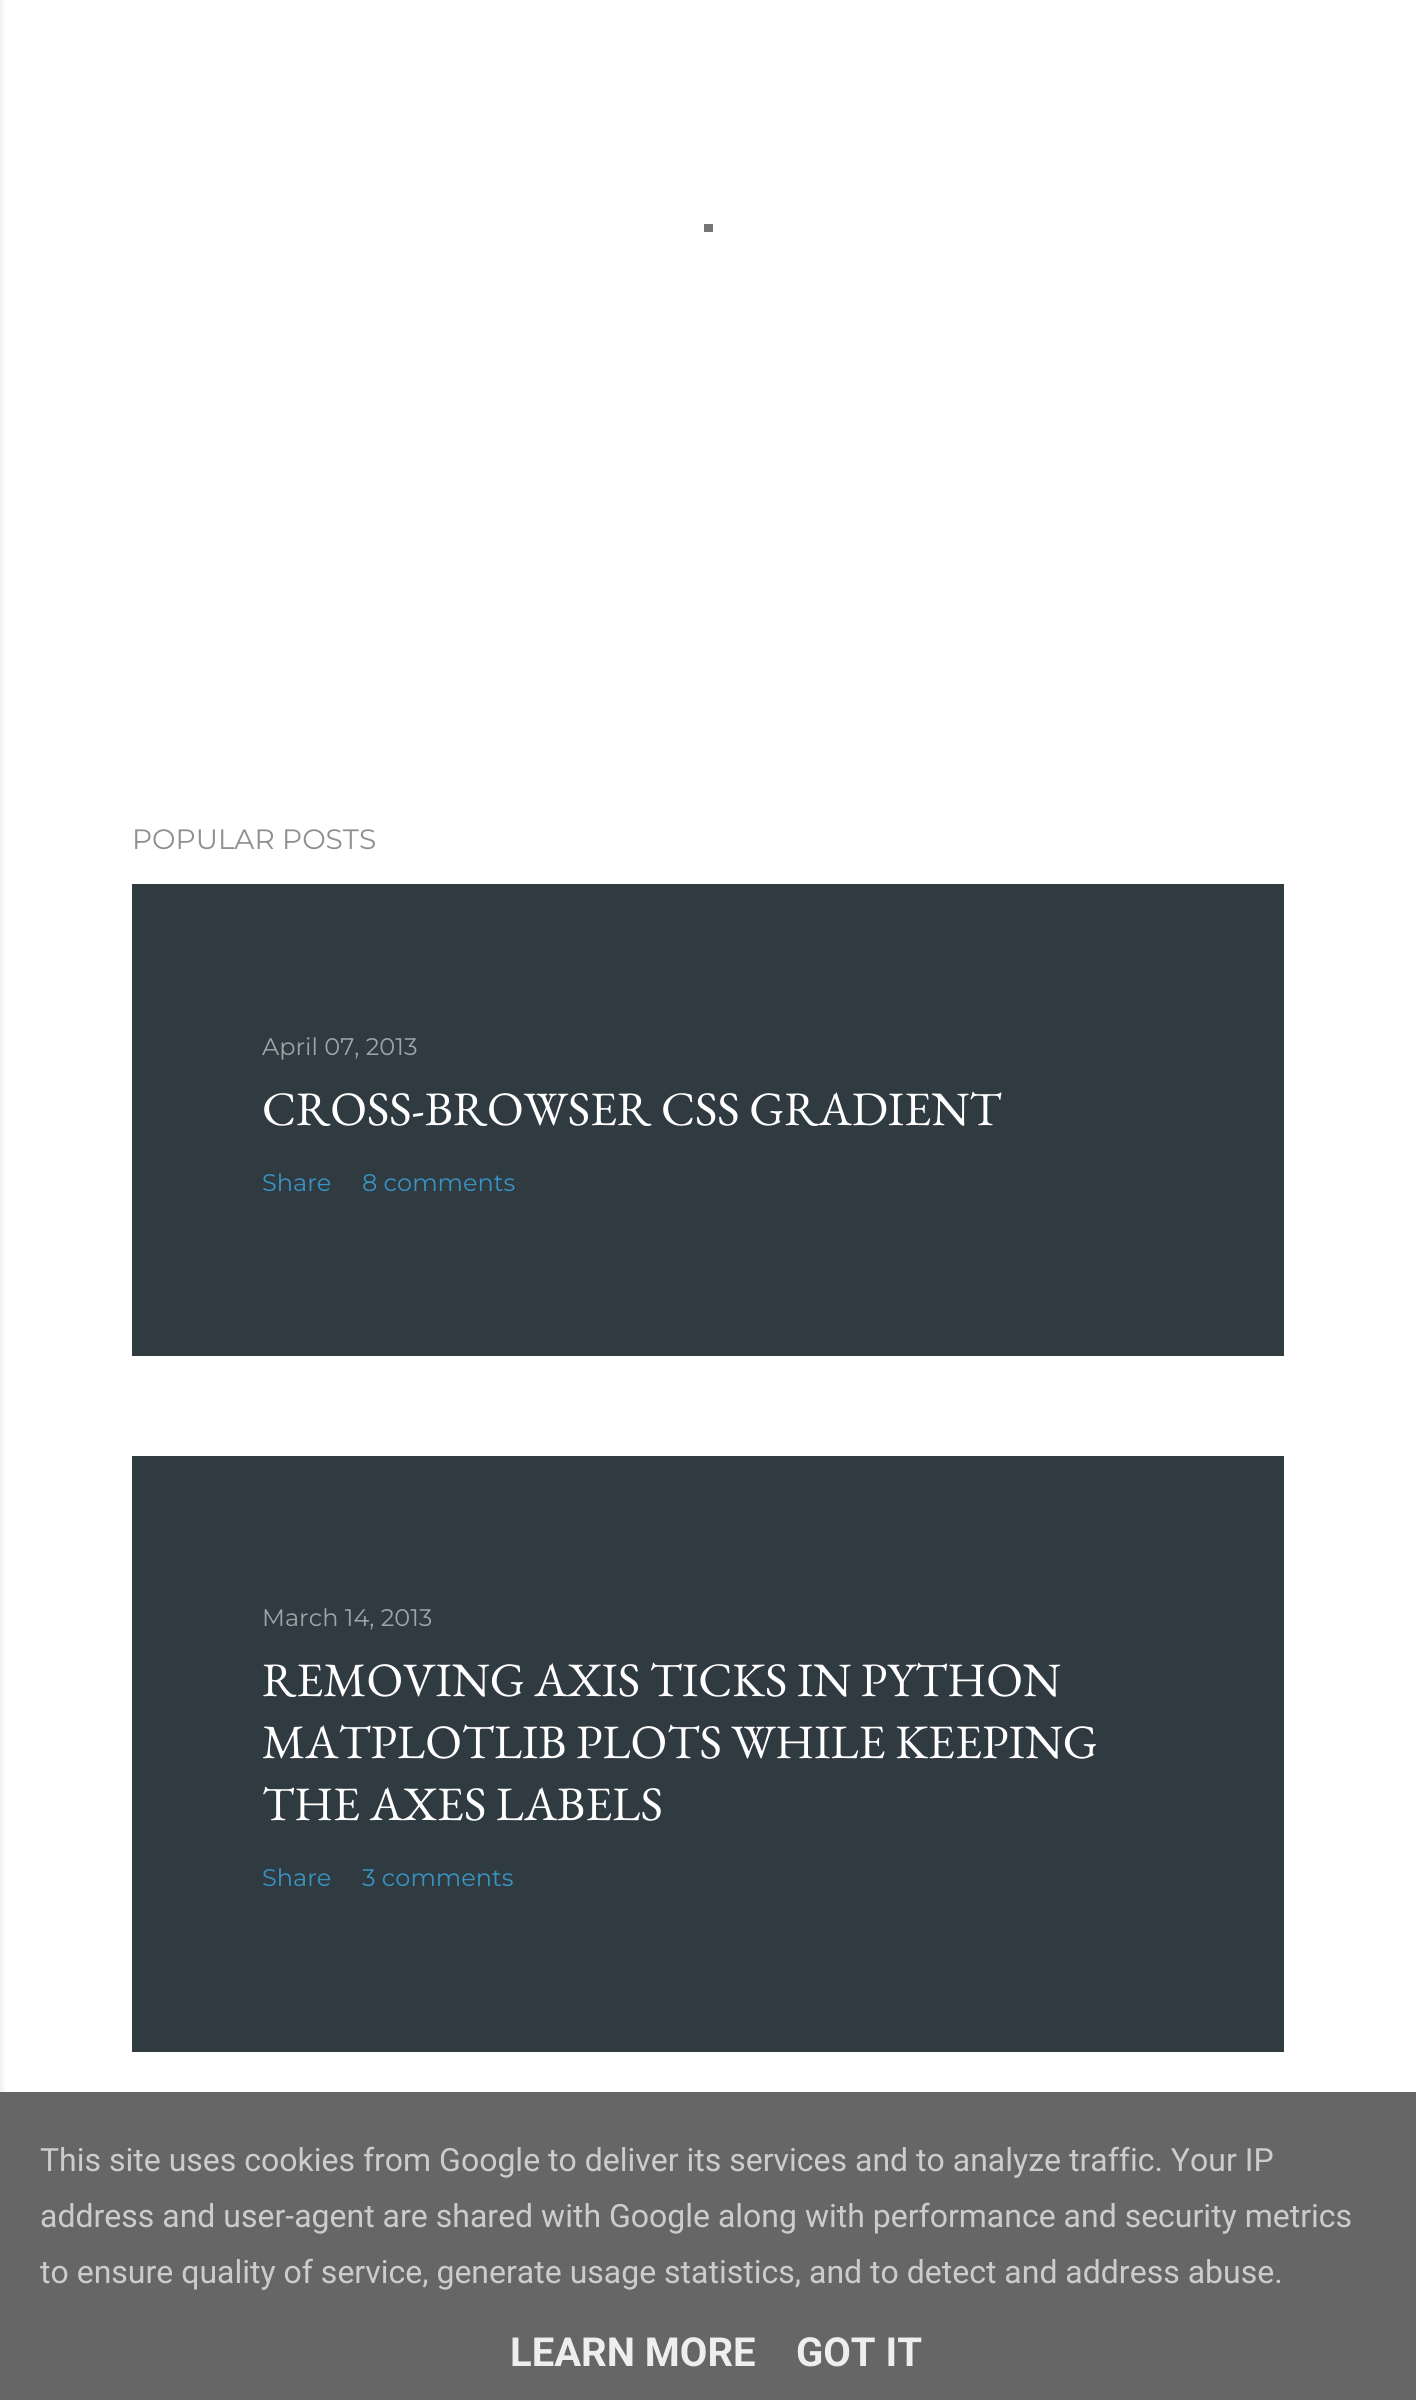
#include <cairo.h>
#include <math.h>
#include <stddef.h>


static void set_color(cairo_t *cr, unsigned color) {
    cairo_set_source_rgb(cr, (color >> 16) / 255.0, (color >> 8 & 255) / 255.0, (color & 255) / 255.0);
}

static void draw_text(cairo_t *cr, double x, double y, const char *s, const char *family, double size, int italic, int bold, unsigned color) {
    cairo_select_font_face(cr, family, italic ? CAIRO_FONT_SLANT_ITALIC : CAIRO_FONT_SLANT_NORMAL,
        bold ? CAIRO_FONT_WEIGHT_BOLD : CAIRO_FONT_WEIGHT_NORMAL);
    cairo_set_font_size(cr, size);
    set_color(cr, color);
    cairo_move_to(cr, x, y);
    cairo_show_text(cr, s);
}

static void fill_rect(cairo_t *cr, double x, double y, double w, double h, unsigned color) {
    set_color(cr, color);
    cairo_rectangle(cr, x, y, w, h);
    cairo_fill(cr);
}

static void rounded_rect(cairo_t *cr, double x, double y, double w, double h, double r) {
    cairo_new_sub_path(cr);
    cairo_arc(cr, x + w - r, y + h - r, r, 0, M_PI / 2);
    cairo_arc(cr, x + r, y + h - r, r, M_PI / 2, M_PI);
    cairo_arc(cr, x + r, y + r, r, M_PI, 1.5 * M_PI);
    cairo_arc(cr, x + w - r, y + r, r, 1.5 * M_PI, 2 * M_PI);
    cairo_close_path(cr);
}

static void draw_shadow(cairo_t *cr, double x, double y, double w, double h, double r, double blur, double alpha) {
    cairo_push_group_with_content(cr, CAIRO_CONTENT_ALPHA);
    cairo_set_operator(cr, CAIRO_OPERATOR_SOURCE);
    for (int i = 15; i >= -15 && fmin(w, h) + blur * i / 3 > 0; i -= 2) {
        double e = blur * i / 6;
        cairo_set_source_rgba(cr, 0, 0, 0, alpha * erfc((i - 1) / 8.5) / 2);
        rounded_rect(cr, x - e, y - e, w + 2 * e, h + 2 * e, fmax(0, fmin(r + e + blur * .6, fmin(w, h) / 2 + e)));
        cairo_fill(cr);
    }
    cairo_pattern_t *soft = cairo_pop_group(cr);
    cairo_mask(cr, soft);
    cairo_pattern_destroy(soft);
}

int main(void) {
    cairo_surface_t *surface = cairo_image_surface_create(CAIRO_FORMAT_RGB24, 1416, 2400);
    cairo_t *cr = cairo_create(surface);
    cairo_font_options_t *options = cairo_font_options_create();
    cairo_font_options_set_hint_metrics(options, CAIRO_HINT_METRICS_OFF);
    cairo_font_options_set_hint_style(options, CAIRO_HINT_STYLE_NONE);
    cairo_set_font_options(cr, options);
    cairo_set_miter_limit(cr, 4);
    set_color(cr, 0xFFFFFF);
    cairo_paint(cr);
    set_color(cr, 0x303030);
    draw_shadow(cr, -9, 0, 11, 2400, 0, 3, 0.1);
    fill_rect(cr, 704, 224, 9, 8, 0x757575);
    draw_text(cr, 132, 849, "POPULAR POSTS", "Montserrat Thin", 28, 0, 0, 0x8F8F8F);
    fill_rect(cr, 132, 884, 1152, 472, 0x303A41);
    draw_text(cr, 262, 1055, "April 07, 2013", "Montserrat Thin", 24, 0, 0, 0xA0A4A8);
    draw_text(cr, 262, 1125, "CROSS-BROWSER CSS GRADIENT", "EB Garamond", 48, 0, 0, 0xFFFFFF);
    draw_text(cr, 262, 1191, "Share", "Montserrat Thin", 24, 0, 0, 0x3993C2);
    draw_text(cr, 362, 1191, "8 comments", "Montserrat Thin", 24, 0, 0, 0x3993C2);
    fill_rect(cr, 132, 1456, 1152, 596, 0x303A41);
    draw_text(cr, 262, 1626, "March 14, 2013", "Montserrat Thin", 24, 0, 0, 0xA0A4A8);
    draw_text(cr, 262, 1696, "REMOVING AXIS TICKS IN PYTHON", "EB Garamond", 48, 0, 0, 0xFFFFFF);
    draw_text(cr, 262, 1758, "MATPLOTLIB PLOTS WHILE KEEPING", "EB Garamond", 48, 0, 0, 0xFFFFFF);
    draw_text(cr, 262, 1820, "THE AXES LABELS", "EB Garamond", 48, 0, 0, 0xFFFFFF);
    draw_text(cr, 262, 1886, "Share", "Montserrat Thin", 24, 0, 0, 0x3993C2);
    draw_text(cr, 362, 1886, "3 comments", "Montserrat Thin", 24, 0, 0, 0x3993C2);
    fill_rect(cr, 0, 2092, 1416, 308, 0x666666);
    draw_text(cr, 40, 2171, "This site uses cookies from Google to deliver its services and to analyze traffic. Your IP", "Roboto", 32, 0, 0, 0xCCCCCC);
    draw_text(cr, 40, 2227, "address and user-agent are shared with Google along with performance and security metrics", "Roboto", 32, 0, 0, 0xCCCCCC);
    draw_text(cr, 40, 2283, "to ensure quality of service, generate usage statistics, and to detect and address abuse.", "Roboto", 32, 0, 0, 0xCCCCCC);
    draw_text(cr, 510, 2366, "LEARN MORE", "Roboto", 40, 0, 1, 0xEEEEEE);
    draw_text(cr, 796, 2366, "GOT IT", "Roboto", 40, 0, 1, 0xEEEEEE);
    cairo_surface_write_to_png(surface, "output.png");
    cairo_font_options_destroy(options);
    cairo_destroy(cr);
    cairo_surface_destroy(surface);
    return 0;
}
